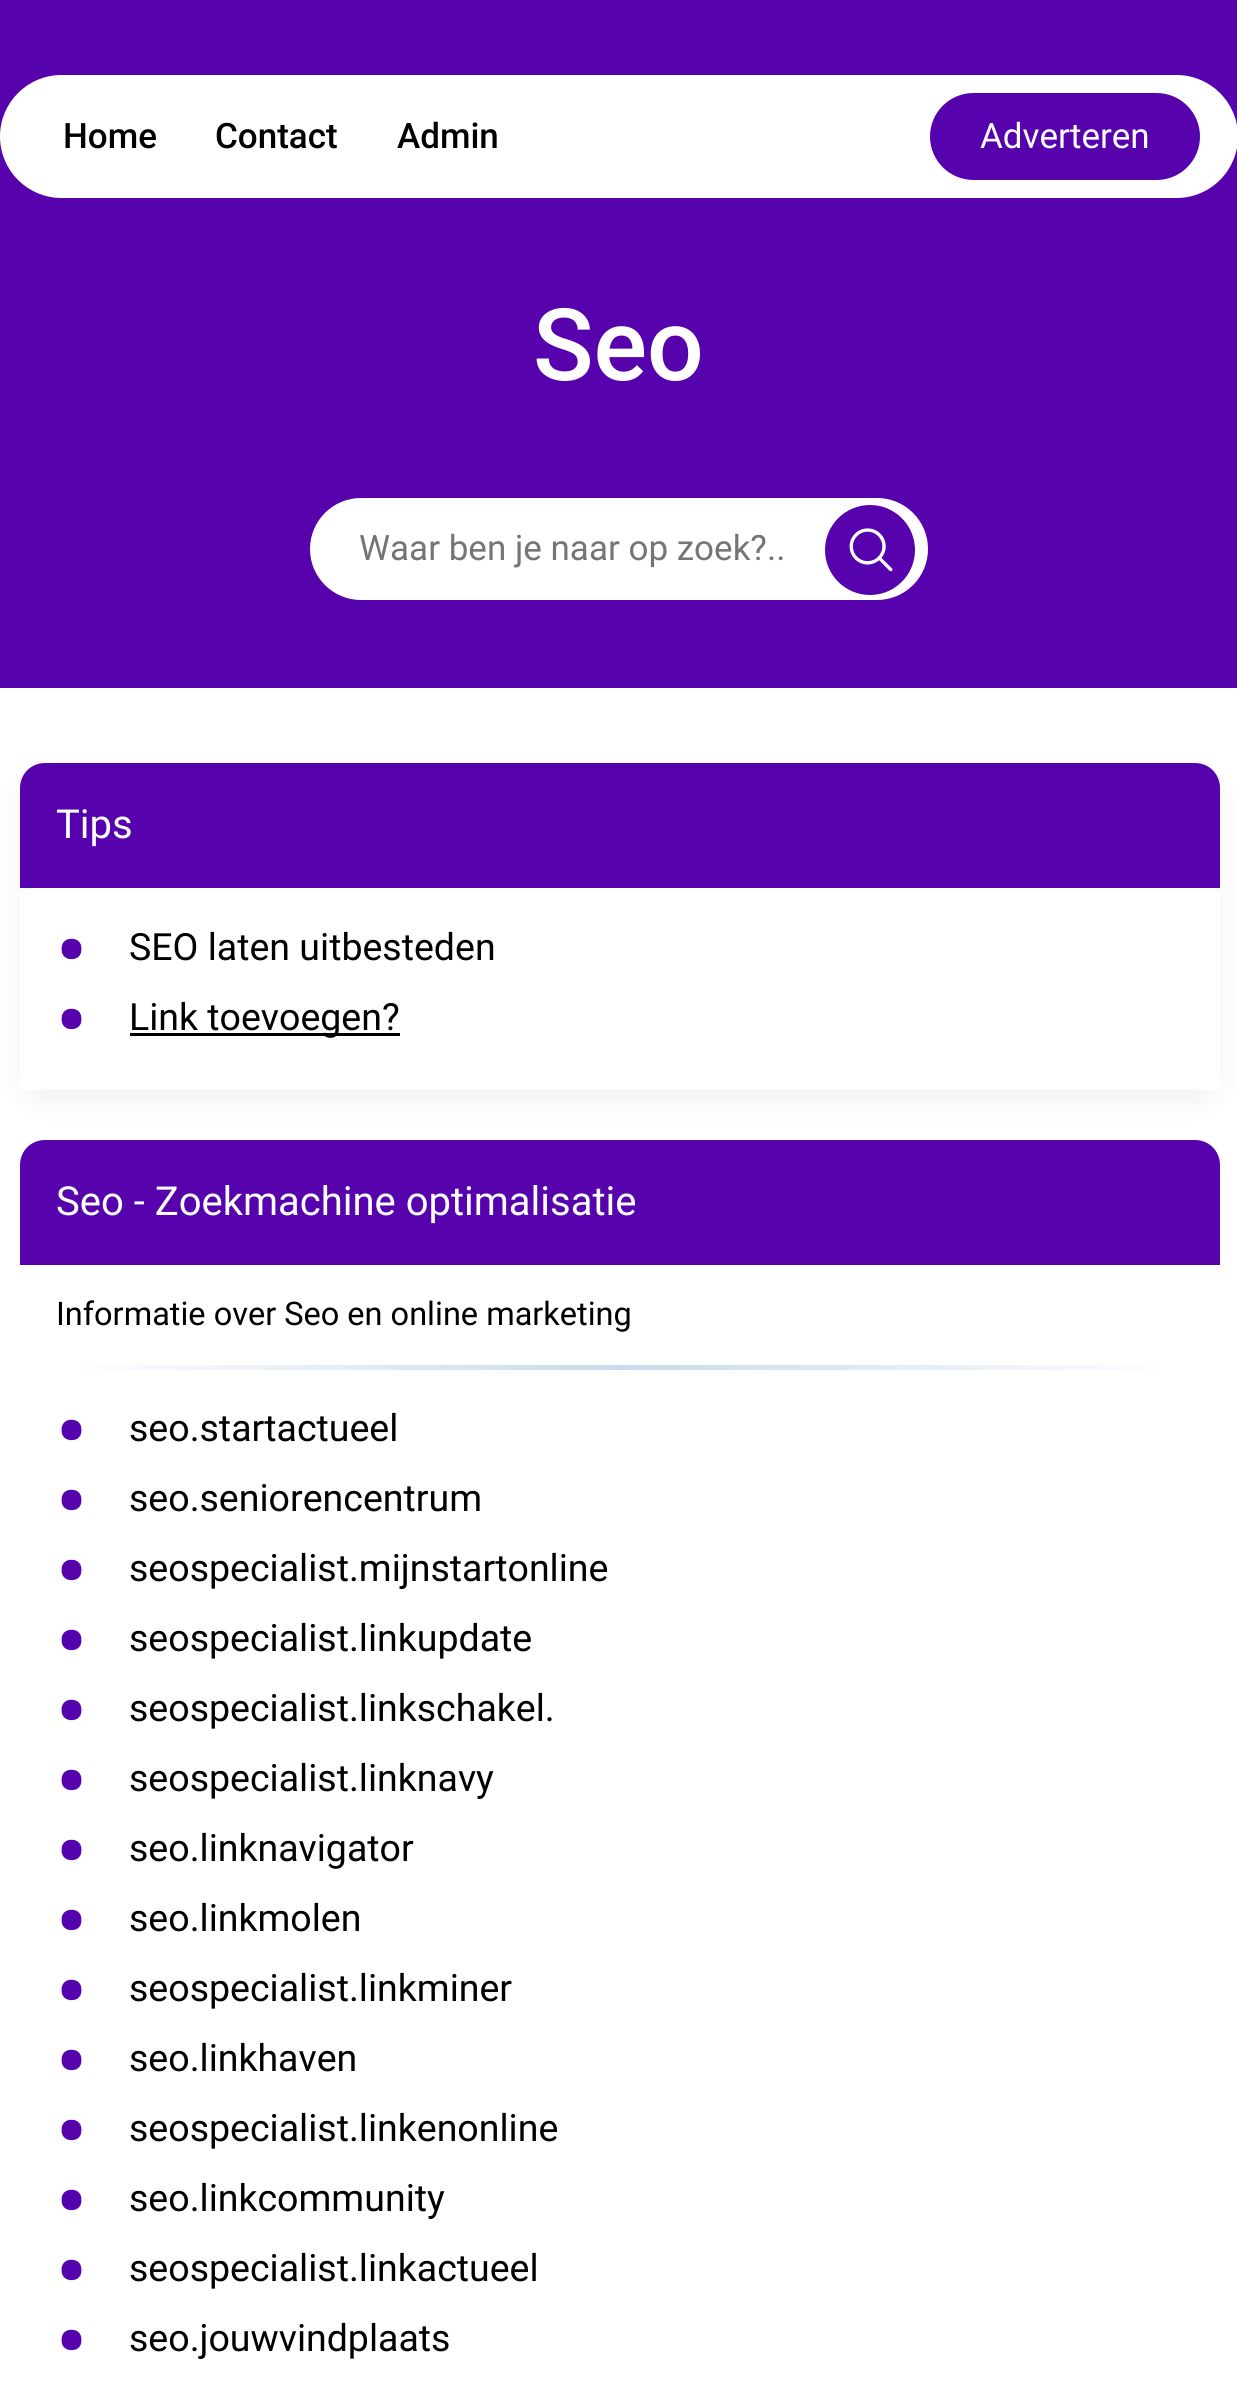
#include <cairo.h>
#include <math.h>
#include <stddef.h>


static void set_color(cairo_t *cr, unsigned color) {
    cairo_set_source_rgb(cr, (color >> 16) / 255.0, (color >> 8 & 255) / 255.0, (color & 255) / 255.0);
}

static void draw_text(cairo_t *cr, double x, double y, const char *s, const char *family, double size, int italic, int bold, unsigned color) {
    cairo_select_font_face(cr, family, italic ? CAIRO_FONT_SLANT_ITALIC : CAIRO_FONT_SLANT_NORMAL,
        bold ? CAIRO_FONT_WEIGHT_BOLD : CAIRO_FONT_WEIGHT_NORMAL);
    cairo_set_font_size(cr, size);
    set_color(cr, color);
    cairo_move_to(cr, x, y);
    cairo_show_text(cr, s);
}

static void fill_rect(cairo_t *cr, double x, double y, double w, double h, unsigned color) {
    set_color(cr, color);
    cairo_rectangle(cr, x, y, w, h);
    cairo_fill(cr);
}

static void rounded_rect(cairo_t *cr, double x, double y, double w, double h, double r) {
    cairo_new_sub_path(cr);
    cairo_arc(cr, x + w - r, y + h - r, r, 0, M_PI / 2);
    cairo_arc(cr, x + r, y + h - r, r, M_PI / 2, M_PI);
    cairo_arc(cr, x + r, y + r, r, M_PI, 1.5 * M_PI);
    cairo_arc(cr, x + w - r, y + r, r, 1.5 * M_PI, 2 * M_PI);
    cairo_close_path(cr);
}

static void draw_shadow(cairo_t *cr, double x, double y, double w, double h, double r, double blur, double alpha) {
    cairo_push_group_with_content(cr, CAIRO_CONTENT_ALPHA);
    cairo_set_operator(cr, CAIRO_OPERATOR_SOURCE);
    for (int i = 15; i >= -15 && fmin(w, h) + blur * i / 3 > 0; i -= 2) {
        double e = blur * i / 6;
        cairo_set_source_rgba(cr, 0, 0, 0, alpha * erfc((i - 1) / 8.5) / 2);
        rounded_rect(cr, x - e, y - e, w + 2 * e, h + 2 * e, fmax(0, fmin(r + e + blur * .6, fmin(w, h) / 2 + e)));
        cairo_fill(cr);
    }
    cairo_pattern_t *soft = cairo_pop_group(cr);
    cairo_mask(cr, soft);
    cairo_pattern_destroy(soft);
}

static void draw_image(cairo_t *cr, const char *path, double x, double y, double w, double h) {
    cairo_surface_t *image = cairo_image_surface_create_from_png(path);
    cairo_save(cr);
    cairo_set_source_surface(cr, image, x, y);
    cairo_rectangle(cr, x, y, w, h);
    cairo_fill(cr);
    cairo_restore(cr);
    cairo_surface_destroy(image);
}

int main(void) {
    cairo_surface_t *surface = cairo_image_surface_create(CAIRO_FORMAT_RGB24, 1237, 2398);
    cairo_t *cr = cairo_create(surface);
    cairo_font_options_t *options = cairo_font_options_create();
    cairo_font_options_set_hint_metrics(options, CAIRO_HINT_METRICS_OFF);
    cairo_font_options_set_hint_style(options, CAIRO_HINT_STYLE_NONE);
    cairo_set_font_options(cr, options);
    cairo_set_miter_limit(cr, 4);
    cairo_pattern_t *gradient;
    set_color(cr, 0xFFFFFF);
    cairo_paint(cr);
    fill_rect(cr, 0, 0, 1237, 688, 0x5603AD);
    set_color(cr, 0xFFFFFF);
    rounded_rect(cr, 0, 75, 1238, 123, 61.5);
    cairo_fill(cr);
    draw_text(cr, 63, 148, "Home", "Roboto Medium", 35, 0, 0, 0x000000);
    draw_text(cr, 215, 148, "Contact", "Roboto Medium", 35, 0, 0, 0x000000);
    draw_text(cr, 397, 148, "Admin", "Roboto Medium", 35, 0, 0, 0x000000);
    set_color(cr, 0x5603AD);
    rounded_rect(cr, 930, 93, 270, 87, 43.5);
    cairo_fill(cr);
    draw_text(cr, 980, 148, "Adverteren", "Roboto", 35, 0, 0, 0xFFFFFF);
    draw_text(cr, 533, 380, "Seo", "Roboto Medium", 100, 0, 0, 0xFFFFFF);
    rounded_rect(cr, 310, 498, 618, 102, 51);
    cairo_fill(cr);
    draw_text(cr, 359, 560, "Waar ben je naar op zoek?..", "Roboto", 35, 0, 0, 0x757575);
    set_color(cr, 0x5603AD);
    cairo_new_path(cr);
    cairo_arc(cr, 870, 550, 45, 0, 2 * M_PI);
    cairo_fill(cr);
    draw_image(cr, "assets/img1.png", 849, 528, 44, 44);
    cairo_save(cr);
    cairo_set_fill_rule(cr, CAIRO_FILL_RULE_EVEN_ODD);
    cairo_new_path(cr);
    cairo_move_to(cr, 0, 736);
    cairo_line_to(cr, 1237, 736);
    cairo_line_to(cr, 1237, 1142);
    cairo_line_to(cr, 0, 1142);
    cairo_close_path(cr);
    cairo_move_to(cr, 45, 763);
    cairo_line_to(cr, 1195, 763);
    cairo_curve_to(cr, 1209, 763, 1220, 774, 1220, 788);
    cairo_line_to(cr, 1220, 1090);
    cairo_line_to(cr, 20, 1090);
    cairo_line_to(cr, 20, 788);
    cairo_curve_to(cr, 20, 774, 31, 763, 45, 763);
    cairo_close_path(cr);
    cairo_clip(cr);
    set_color(cr, 0x000000);
    draw_shadow(cr, 20, 775, 1200, 328, 25, 12.5, 0.05);
    cairo_restore(cr);
    cairo_new_path(cr);
    cairo_move_to(cr, 45, 763);
    cairo_line_to(cr, 1195, 763);
    cairo_curve_to(cr, 1209, 763, 1220, 774, 1220, 788);
    cairo_line_to(cr, 1220, 888);
    cairo_line_to(cr, 20, 888);
    cairo_line_to(cr, 20, 788);
    cairo_curve_to(cr, 20, 774, 31, 763, 45, 763);
    cairo_close_path(cr);
    cairo_fill(cr);
    draw_text(cr, 56, 838, "Tips", "Roboto", 40, 0, 0, 0xFFFFFF);
    draw_text(cr, 56, 980, "•", "Roboto", 85, 0, 1, 0x5603AD);
    draw_text(cr, 129, 960, "SEO laten uitbesteden", "Roboto", 37.5, 0, 0, 0x000000);
    draw_text(cr, 56, 1050, "•", "Roboto", 85, 0, 1, 0x5603AD);
    fill_rect(cr, 130, 1033, 270, 3, 0x000000);
    draw_text(cr, 129, 1030, "Link toevoegen?", "Roboto", 37.5, 0, 0, 0x000000);
    set_color(cr, 0x5603AD);
    cairo_new_path(cr);
    cairo_move_to(cr, 45, 1140);
    cairo_line_to(cr, 1195, 1140);
    cairo_curve_to(cr, 1209, 1140, 1220, 1151, 1220, 1165);
    cairo_line_to(cr, 1220, 1265);
    cairo_line_to(cr, 20, 1265);
    cairo_line_to(cr, 20, 1165);
    cairo_curve_to(cr, 20, 1151, 31, 1140, 45, 1140);
    cairo_close_path(cr);
    cairo_fill(cr);
    draw_text(cr, 56, 1215, "Seo - Zoekmachine optimalisatie", "Roboto", 40, 0, 0, 0xFFFFFF);
    draw_text(cr, 56, 1325, "Informatie over Seo en online marketing", "Roboto", 32.5, 0, 0, 0x000000);
    gradient = cairo_pattern_create_linear(58, 1368, 1183, 1368);
    cairo_pattern_add_color_stop_rgba(gradient, 0, 1, 1, 1, 1);
    cairo_pattern_add_color_stop_rgba(gradient, 0.5, 0.776, 0.859, 0.933, 1);
    cairo_pattern_add_color_stop_rgba(gradient, 1, 1, 1, 1, 1);
    cairo_set_source(cr, gradient);
    cairo_pattern_destroy(gradient);
    cairo_rectangle(cr, 83, 1365, 1075, 5);
    cairo_fill(cr);
    draw_text(cr, 56, 1461, "•", "Roboto", 85, 0, 1, 0x5603AD);
    draw_text(cr, 129, 1441, "seo.startactueel", "Roboto", 37.5, 0, 0, 0x000000);
    draw_text(cr, 56, 1531, "•", "Roboto", 85, 0, 1, 0x5603AD);
    draw_text(cr, 129, 1511, "seo.seniorencentrum", "Roboto", 37.5, 0, 0, 0x000000);
    draw_text(cr, 56, 1601, "•", "Roboto", 85, 0, 1, 0x5603AD);
    draw_text(cr, 129, 1581, "seospecialist.mijnstartonline", "Roboto", 37.5, 0, 0, 0x000000);
    draw_text(cr, 56, 1671, "•", "Roboto", 85, 0, 1, 0x5603AD);
    draw_text(cr, 129, 1651, "seospecialist.linkupdate", "Roboto", 37.5, 0, 0, 0x000000);
    draw_text(cr, 56, 1741, "•", "Roboto", 85, 0, 1, 0x5603AD);
    draw_text(cr, 129, 1721, "seospecialist.linkschakel.", "Roboto", 37.5, 0, 0, 0x000000);
    draw_text(cr, 56, 1811, "•", "Roboto", 85, 0, 1, 0x5603AD);
    draw_text(cr, 129, 1791, "seospecialist.linknavy", "Roboto", 37.5, 0, 0, 0x000000);
    draw_text(cr, 56, 1881, "•", "Roboto", 85, 0, 1, 0x5603AD);
    draw_text(cr, 129, 1861, "seo.linknavigator", "Roboto", 37.5, 0, 0, 0x000000);
    draw_text(cr, 56, 1951, "•", "Roboto", 85, 0, 1, 0x5603AD);
    draw_text(cr, 129, 1931, "seo.linkmolen", "Roboto", 37.5, 0, 0, 0x000000);
    draw_text(cr, 56, 2021, "•", "Roboto", 85, 0, 1, 0x5603AD);
    draw_text(cr, 129, 2001, "seospecialist.linkminer", "Roboto", 37.5, 0, 0, 0x000000);
    draw_text(cr, 56, 2091, "•", "Roboto", 85, 0, 1, 0x5603AD);
    draw_text(cr, 129, 2071, "seo.linkhaven", "Roboto", 37.5, 0, 0, 0x000000);
    draw_text(cr, 56, 2161, "•", "Roboto", 85, 0, 1, 0x5603AD);
    draw_text(cr, 129, 2141, "seospecialist.linkenonline", "Roboto", 37.5, 0, 0, 0x000000);
    draw_text(cr, 56, 2231, "•", "Roboto", 85, 0, 1, 0x5603AD);
    draw_text(cr, 129, 2211, "seo.linkcommunity", "Roboto", 37.5, 0, 0, 0x000000);
    draw_text(cr, 56, 2301, "•", "Roboto", 85, 0, 1, 0x5603AD);
    draw_text(cr, 129, 2281, "seospecialist.linkactueel", "Roboto", 37.5, 0, 0, 0x000000);
    draw_text(cr, 56, 2371, "•", "Roboto", 85, 0, 1, 0x5603AD);
    draw_text(cr, 129, 2351, "seo.jouwvindplaats", "Roboto", 37.5, 0, 0, 0x000000);
    cairo_surface_write_to_png(surface, "output.png");
    cairo_font_options_destroy(options);
    cairo_destroy(cr);
    cairo_surface_destroy(surface);
    return 0;
}
